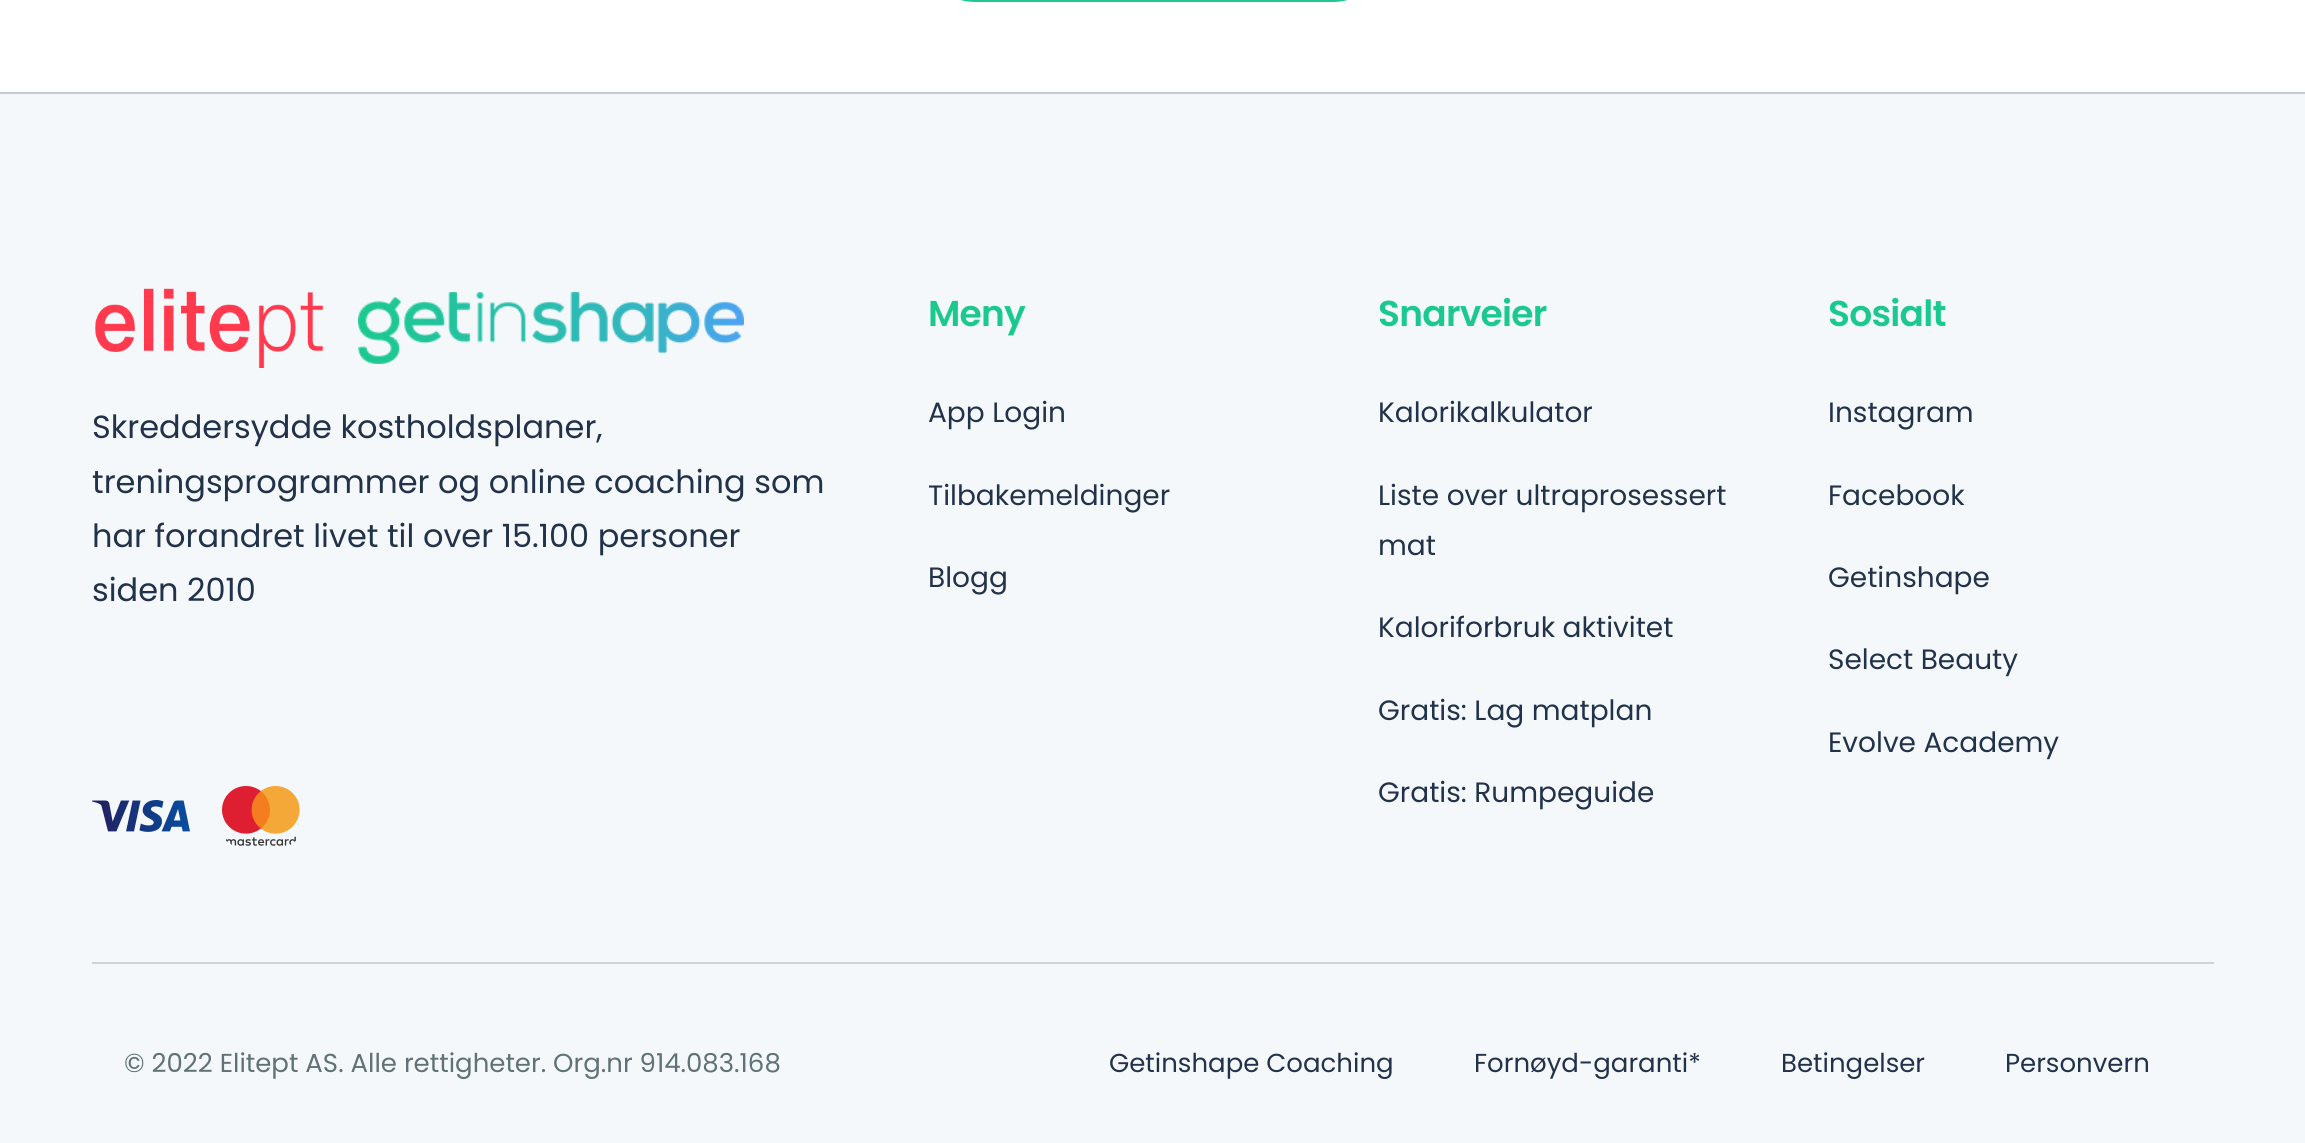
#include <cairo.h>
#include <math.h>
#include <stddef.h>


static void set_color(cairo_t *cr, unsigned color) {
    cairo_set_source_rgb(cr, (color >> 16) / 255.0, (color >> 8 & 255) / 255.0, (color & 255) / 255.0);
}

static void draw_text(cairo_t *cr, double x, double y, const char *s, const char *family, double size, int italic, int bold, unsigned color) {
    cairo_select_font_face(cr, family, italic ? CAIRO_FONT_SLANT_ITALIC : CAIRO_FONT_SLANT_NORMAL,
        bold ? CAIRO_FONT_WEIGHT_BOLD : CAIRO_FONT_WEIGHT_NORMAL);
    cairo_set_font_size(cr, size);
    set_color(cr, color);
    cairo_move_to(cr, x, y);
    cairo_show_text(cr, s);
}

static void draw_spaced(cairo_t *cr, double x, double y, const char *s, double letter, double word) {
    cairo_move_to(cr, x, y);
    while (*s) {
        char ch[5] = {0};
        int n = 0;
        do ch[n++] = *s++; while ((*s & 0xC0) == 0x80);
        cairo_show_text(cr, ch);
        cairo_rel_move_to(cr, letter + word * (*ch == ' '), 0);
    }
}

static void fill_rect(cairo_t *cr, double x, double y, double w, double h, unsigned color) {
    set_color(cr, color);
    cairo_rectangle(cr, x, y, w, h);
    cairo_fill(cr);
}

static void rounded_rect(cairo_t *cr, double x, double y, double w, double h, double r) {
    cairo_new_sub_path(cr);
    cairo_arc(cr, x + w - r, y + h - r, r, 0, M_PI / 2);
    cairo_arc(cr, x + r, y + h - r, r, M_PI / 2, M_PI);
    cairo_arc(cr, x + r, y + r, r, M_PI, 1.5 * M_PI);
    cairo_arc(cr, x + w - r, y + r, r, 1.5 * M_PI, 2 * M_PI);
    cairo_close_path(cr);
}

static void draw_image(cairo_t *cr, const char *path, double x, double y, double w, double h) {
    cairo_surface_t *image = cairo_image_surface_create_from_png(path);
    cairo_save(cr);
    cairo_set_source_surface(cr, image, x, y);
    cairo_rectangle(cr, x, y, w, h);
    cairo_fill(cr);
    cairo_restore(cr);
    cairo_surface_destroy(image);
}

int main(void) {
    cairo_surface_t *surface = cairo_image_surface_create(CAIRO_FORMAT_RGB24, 2305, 1143);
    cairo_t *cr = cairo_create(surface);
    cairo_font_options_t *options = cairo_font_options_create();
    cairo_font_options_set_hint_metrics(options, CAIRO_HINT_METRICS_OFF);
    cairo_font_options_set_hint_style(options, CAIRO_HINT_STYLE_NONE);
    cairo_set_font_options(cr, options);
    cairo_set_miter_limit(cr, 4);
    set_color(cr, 0xFFFFFF);
    cairo_paint(cr);
    set_color(cr, 0x1BC98E);
    rounded_rect(cr, 914, -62, 480, 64, 62);
    cairo_fill(cr);
    fill_rect(cr, 0, 94, 2305, 1049, 0xF4F8FA);
    fill_rect(cr, 0, 92, 2305, 2, 0xC8C8D5);
    draw_image(cr, "assets/img1.png", 95, 288, 229, 80);
    draw_image(cr, "assets/img2.png", 358, 292, 386, 72);
    draw_text(cr, 92, 438, "Skreddersydde kostholdsplaner,", "Poppins", 32, 0, 0, 0x22324A);
    draw_text(cr, 92, 493, "treningsprogrammer og online coaching som", "Poppins", 32, 0, 0, 0x22324A);
    draw_text(cr, 92, 547, "har forandret livet til over 15.100 personer", "Poppins", 32, 0, 0, 0x22324A);
    draw_text(cr, 92, 601, "siden 2010", "Poppins", 32, 0, 0, 0x22324A);
    draw_image(cr, "assets/img3.png", 92, 800, 98, 32);
    draw_image(cr, "assets/img4.png", 222, 786, 78, 60);
    cairo_select_font_face(cr, "Poppins SemiBold", CAIRO_FONT_SLANT_NORMAL, CAIRO_FONT_WEIGHT_NORMAL);
    cairo_set_font_size(cr, 36);
    set_color(cr, 0x1BC98E);
    draw_spaced(cr, 928, 326, "Meny", -0.75, 0);
    draw_text(cr, 928, 422, "App Login", "Poppins", 28, 0, 0, 0x22324A);
    draw_text(cr, 928, 505, "Tilbakemeldinger", "Poppins", 28, 0, 0, 0x22324A);
    draw_text(cr, 928, 587, "Blogg", "Poppins", 28, 0, 0, 0x22324A);
    cairo_select_font_face(cr, "Poppins SemiBold", CAIRO_FONT_SLANT_NORMAL, CAIRO_FONT_WEIGHT_NORMAL);
    cairo_set_font_size(cr, 36);
    set_color(cr, 0x1BC98E);
    draw_spaced(cr, 1378, 326, "Snarveier", -0.75, 0);
    draw_text(cr, 1378, 422, "Kalorikalkulator", "Poppins", 28, 0, 0, 0x22324A);
    draw_text(cr, 1378, 505, "Liste over ultraprosessert", "Poppins", 28, 0, 0, 0x22324A);
    draw_text(cr, 1378, 555, "mat", "Poppins", 28, 0, 0, 0x22324A);
    draw_text(cr, 1378, 637, "Kaloriforbruk aktivitet", "Poppins", 28, 0, 0, 0x22324A);
    draw_text(cr, 1378, 720, "Gratis: Lag matplan", "Poppins", 28, 0, 0, 0x22324A);
    draw_text(cr, 1378, 802, "Gratis: Rumpeguide", "Poppins", 28, 0, 0, 0x22324A);
    cairo_select_font_face(cr, "Poppins SemiBold", CAIRO_FONT_SLANT_NORMAL, CAIRO_FONT_WEIGHT_NORMAL);
    cairo_set_font_size(cr, 36);
    set_color(cr, 0x1BC98E);
    draw_spaced(cr, 1828, 326, "Sosialt", -0.75, 0);
    draw_text(cr, 1828, 422, "Instagram", "Poppins", 28, 0, 0, 0x22324A);
    draw_text(cr, 1828, 505, "Facebook", "Poppins", 28, 0, 0, 0x22324A);
    draw_text(cr, 1828, 587, "Getinshape", "Poppins", 28, 0, 0, 0x22324A);
    draw_text(cr, 1828, 669, "Select Beauty", "Poppins", 28, 0, 0, 0x22324A);
    draw_text(cr, 1828, 752, "Evolve Academy", "Poppins", 28, 0, 0, 0x22324A);
    fill_rect(cr, 92, 962, 2122, 2, 0xCCD4D6);
    draw_text(cr, 124, 1072, "© 2022 Elitept AS. Alle rettigheter. Org.nr 914.083.168", "Poppins", 26, 0, 0, 0x607276);
    draw_text(cr, 1109, 1072, "Getinshape Coaching", "Poppins", 26, 0, 0, 0x22324A);
    draw_text(cr, 1474, 1072, "Fornøyd-garanti*", "Poppins", 26, 0, 0, 0x22324A);
    draw_text(cr, 1781, 1072, "Betingelser", "Poppins", 26, 0, 0, 0x22324A);
    draw_text(cr, 2005, 1072, "Personvern", "Poppins", 26, 0, 0, 0x22324A);
    cairo_surface_write_to_png(surface, "output.png");
    cairo_font_options_destroy(options);
    cairo_destroy(cr);
    cairo_surface_destroy(surface);
    return 0;
}
